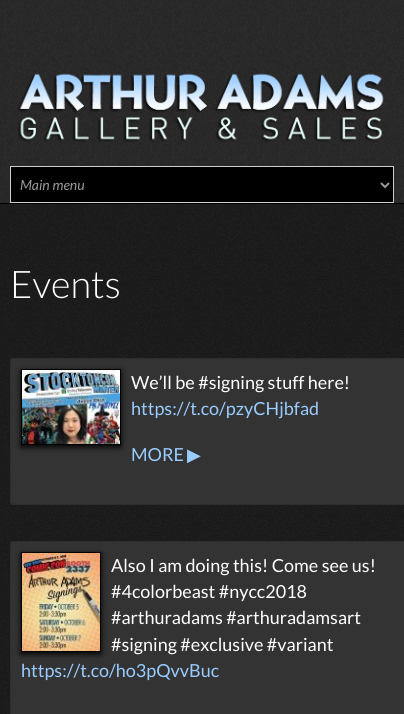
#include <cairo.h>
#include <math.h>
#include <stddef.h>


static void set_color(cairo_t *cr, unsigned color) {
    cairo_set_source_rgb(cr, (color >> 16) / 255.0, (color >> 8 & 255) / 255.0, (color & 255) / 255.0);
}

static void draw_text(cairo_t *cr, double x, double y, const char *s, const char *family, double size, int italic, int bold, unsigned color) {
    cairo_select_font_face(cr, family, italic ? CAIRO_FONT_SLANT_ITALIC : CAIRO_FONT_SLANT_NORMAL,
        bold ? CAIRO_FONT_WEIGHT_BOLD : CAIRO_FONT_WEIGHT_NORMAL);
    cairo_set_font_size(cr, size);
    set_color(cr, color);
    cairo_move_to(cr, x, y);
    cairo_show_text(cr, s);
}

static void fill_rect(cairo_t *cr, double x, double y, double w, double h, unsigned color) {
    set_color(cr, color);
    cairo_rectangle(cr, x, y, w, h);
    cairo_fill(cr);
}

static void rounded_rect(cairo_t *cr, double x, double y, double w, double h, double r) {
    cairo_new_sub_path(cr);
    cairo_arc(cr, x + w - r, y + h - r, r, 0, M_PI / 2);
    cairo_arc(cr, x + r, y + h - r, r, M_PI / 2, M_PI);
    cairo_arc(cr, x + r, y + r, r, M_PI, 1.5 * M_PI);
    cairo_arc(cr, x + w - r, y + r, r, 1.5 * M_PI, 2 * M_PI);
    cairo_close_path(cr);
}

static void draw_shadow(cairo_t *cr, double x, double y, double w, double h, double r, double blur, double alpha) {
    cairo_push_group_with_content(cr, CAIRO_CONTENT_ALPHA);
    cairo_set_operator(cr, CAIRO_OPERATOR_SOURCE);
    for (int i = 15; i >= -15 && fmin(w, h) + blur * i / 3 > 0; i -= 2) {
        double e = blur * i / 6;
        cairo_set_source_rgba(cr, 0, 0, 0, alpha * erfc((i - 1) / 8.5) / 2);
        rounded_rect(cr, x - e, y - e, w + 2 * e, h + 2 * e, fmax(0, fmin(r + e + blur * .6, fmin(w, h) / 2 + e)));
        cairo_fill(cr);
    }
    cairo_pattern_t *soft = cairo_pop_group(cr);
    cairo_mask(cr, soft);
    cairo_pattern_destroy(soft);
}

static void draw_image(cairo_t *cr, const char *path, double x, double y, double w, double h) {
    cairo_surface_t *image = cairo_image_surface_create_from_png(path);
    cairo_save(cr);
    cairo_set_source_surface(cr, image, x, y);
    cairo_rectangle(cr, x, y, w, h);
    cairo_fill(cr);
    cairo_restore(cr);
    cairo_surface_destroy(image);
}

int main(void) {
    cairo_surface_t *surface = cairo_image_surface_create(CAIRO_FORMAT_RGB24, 404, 714);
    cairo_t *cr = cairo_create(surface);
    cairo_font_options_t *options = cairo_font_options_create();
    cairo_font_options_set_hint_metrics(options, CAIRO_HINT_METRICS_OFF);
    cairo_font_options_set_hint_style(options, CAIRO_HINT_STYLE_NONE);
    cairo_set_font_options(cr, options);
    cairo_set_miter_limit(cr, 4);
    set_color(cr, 0xFFFFFF);
    cairo_paint(cr);
    draw_image(cr, "assets/img1.png", 0, 0, 404, 203);
    fill_rect(cr, 0, 203, 404, 1, 0x000000);
    draw_image(cr, "assets/img2.png", 18, 73, 366, 69);
    cairo_rectangle(cr, 10.5, 166.5, 383, 36);
    cairo_fill_preserve(cr);
    set_color(cr, 0xCFCFCF);
    cairo_set_line_width(cr, 1);
    cairo_stroke(cr);
    cairo_new_path(cr);
    cairo_move_to(cr, 381, 183);
    cairo_line_to(cr, 385, 187);
    cairo_line_to(cr, 389, 183);
    set_color(cr, 0x999999);
    cairo_set_line_width(cr, 2);
    cairo_stroke(cr);
    draw_text(cr, 20, 190, "Main menu", "Lato", 14, 1, 0, 0x999999);
    draw_image(cr, "assets/img3.png", 0, 204, 404, 510);
    draw_text(cr, 10, 298, "Events", "Lato Light", 38, 0, 0, 0xFFFFFF);
    set_color(cr, 0x333333);
    rounded_rect(cr, 10, 358, 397, 147, 3);
    cairo_fill(cr);
    rounded_rect(cr, 10.5, 358.5, 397, 146, 2.5);
    cairo_set_source_rgba(cr, 0, 0, 0, 0.1);
    cairo_set_line_width(cr, 1);
    cairo_stroke(cr);
    set_color(cr, 0x000000);
    draw_shadow(cr, 21, 371, 100, 76, 0, 3, 1);
    cairo_rectangle(cr, 21.5, 369.5, 99, 75);
    set_color(cr, 0x000000);
    cairo_stroke(cr);
    draw_image(cr, "assets/img4.png", 22, 370, 98, 74);
    draw_text(cr, 131, 389, "We’ll be #signing stuff here!", "Lato", 18, 0, 0, 0xFFFFFF);
    draw_text(cr, 131, 415, "https://t.co/pzyCHjbfad", "Lato", 18, 0, 0, 0x99CCFF);
    draw_text(cr, 131, 461, "MORE", "Lato", 18, 0, 0, 0x99CCFF);
    draw_text(cr, 187, 461, "▶", "DejaVu Sans", 18, 0, 0, 0x99CCFF);
    set_color(cr, 0x333333);
    rounded_rect(cr, 10, 541, 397, 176, 3);
    cairo_fill(cr);
    rounded_rect(cr, 10.5, 541.5, 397, 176, 2.5);
    cairo_set_source_rgba(cr, 0, 0, 0, 0.1);
    cairo_stroke(cr);
    set_color(cr, 0x000000);
    draw_shadow(cr, 21, 554, 80, 100, 0, 3, 1);
    cairo_rectangle(cr, 21.5, 552.5, 79, 99);
    set_color(cr, 0x000000);
    cairo_stroke(cr);
    draw_image(cr, "assets/img5.png", 22, 553, 78, 98);
    draw_text(cr, 111, 572, "Also I am doing this! Come see us!", "Lato", 18, 0, 0, 0xFFFFFF);
    draw_text(cr, 111, 598, "#4colorbeast #nycc2018", "Lato", 18, 0, 0, 0xFFFFFF);
    draw_text(cr, 111, 624, "#arthuradams #arthuradamsart", "Lato", 18, 0, 0, 0xFFFFFF);
    draw_text(cr, 111, 651, "#signing #exclusive #variant", "Lato", 18, 0, 0, 0xFFFFFF);
    draw_text(cr, 21, 677, "https://t.co/ho3pQvvBuc", "Lato", 18, 0, 0, 0x99CCFF);
    cairo_surface_write_to_png(surface, "output.png");
    cairo_font_options_destroy(options);
    cairo_destroy(cr);
    cairo_surface_destroy(surface);
    return 0;
}
